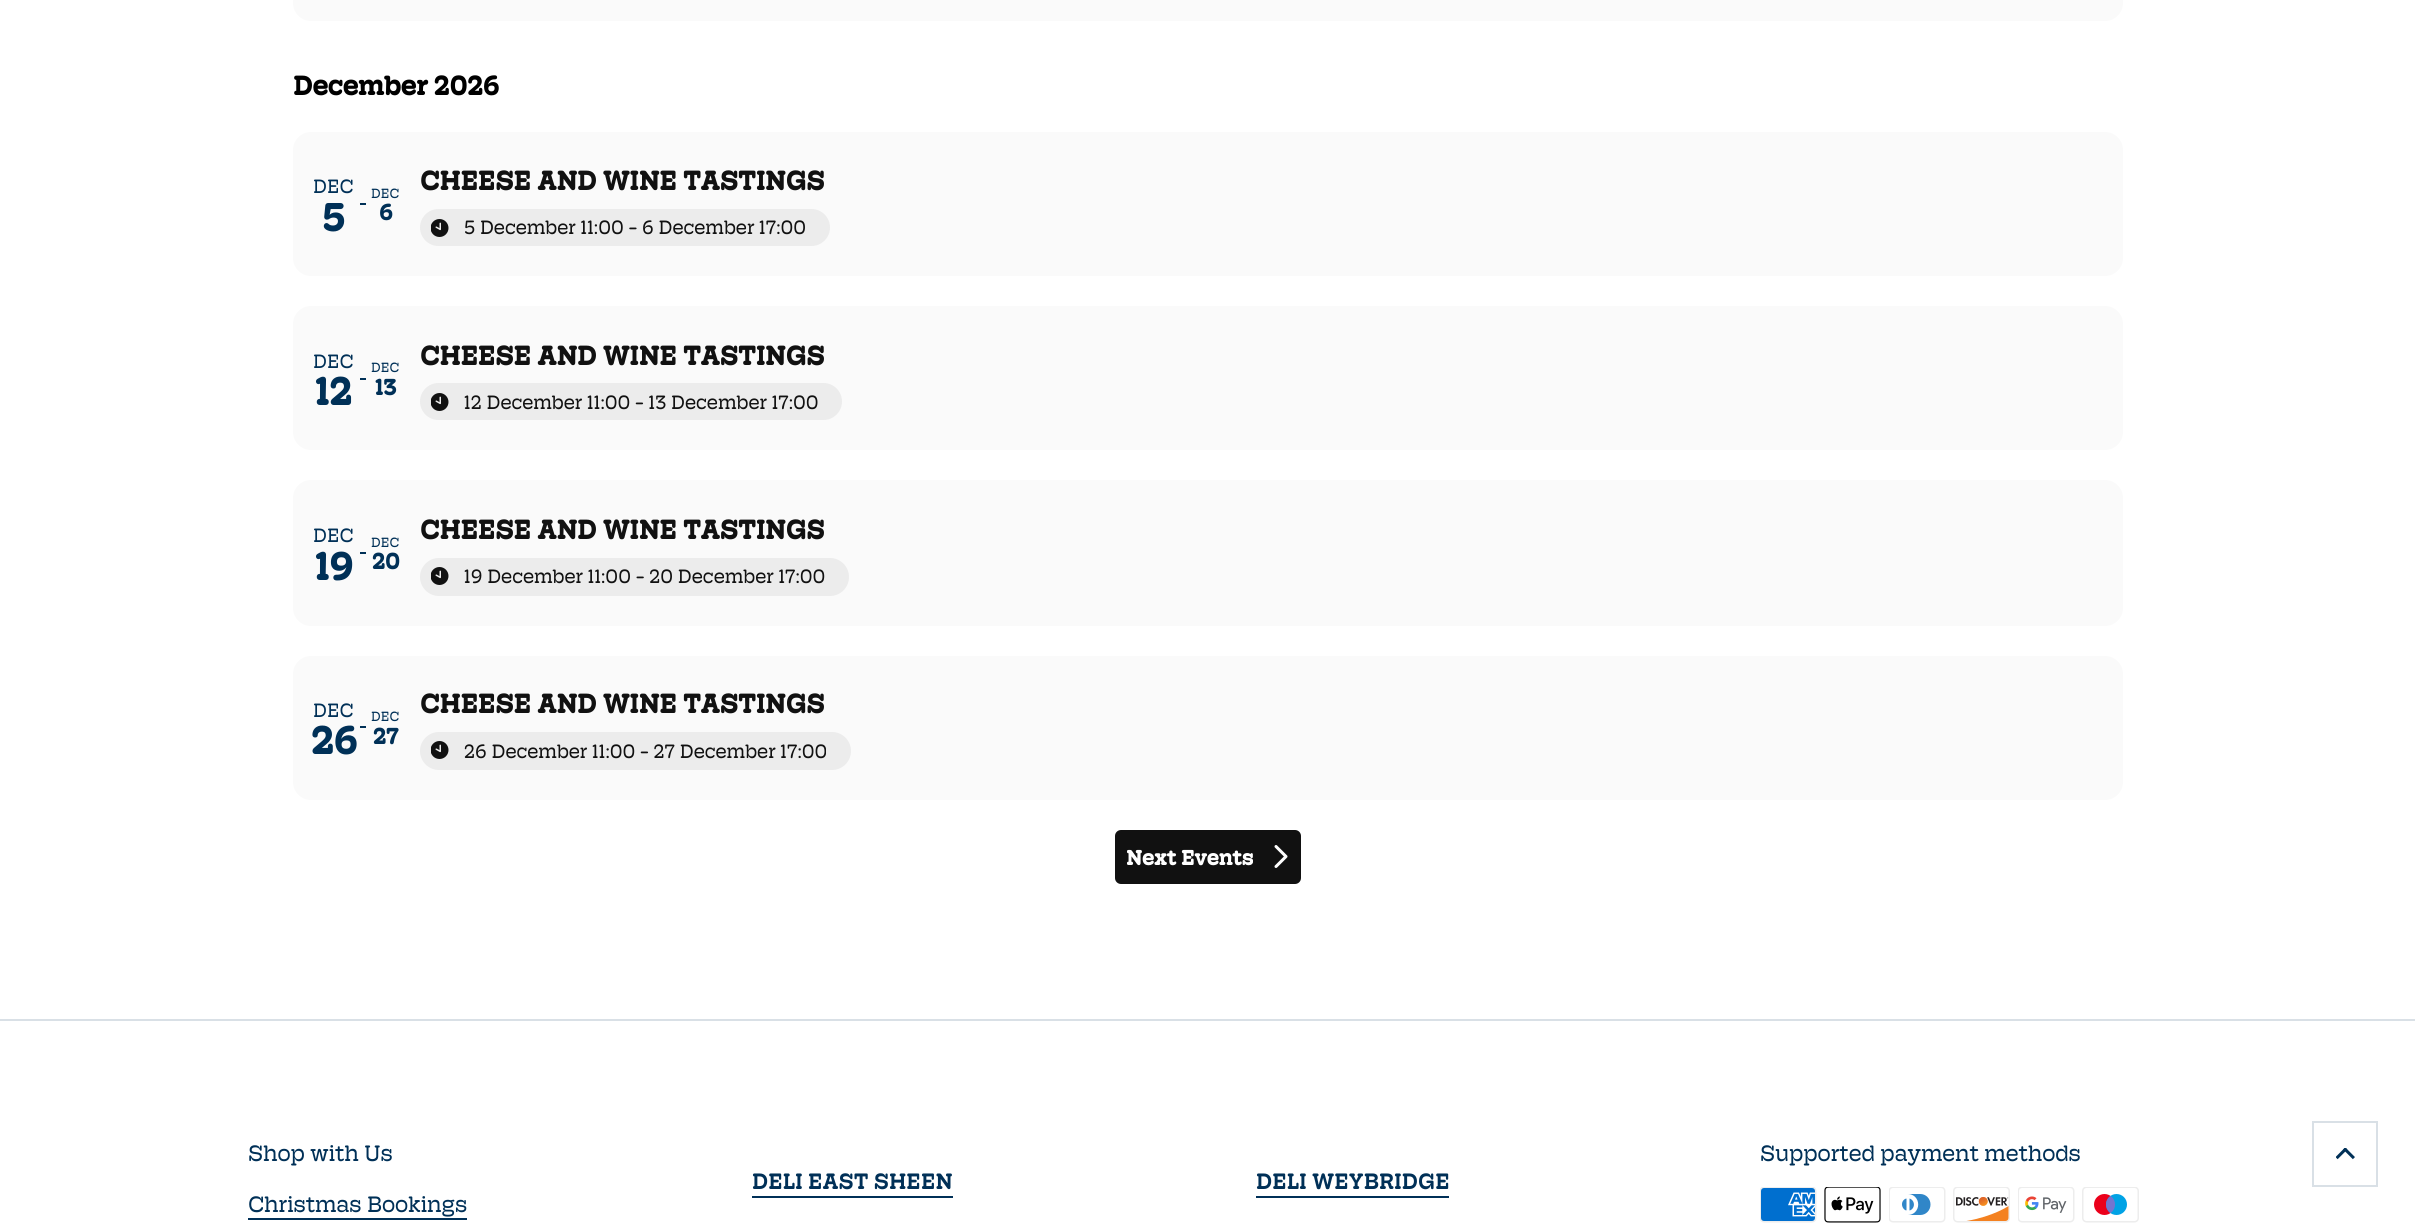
#include <cairo.h>
#include <math.h>
#include <stddef.h>


static void set_color(cairo_t *cr, unsigned color) {
    cairo_set_source_rgb(cr, (color >> 16) / 255.0, (color >> 8 & 255) / 255.0, (color & 255) / 255.0);
}

static void draw_text(cairo_t *cr, double x, double y, const char *s, const char *family, double size, int italic, int bold, unsigned color) {
    cairo_select_font_face(cr, family, italic ? CAIRO_FONT_SLANT_ITALIC : CAIRO_FONT_SLANT_NORMAL,
        bold ? CAIRO_FONT_WEIGHT_BOLD : CAIRO_FONT_WEIGHT_NORMAL);
    cairo_set_font_size(cr, size);
    set_color(cr, color);
    cairo_move_to(cr, x, y);
    cairo_show_text(cr, s);
}

static void fill_rect(cairo_t *cr, double x, double y, double w, double h, unsigned color) {
    set_color(cr, color);
    cairo_rectangle(cr, x, y, w, h);
    cairo_fill(cr);
}

static void rounded_rect(cairo_t *cr, double x, double y, double w, double h, double r) {
    cairo_new_sub_path(cr);
    cairo_arc(cr, x + w - r, y + h - r, r, 0, M_PI / 2);
    cairo_arc(cr, x + r, y + h - r, r, M_PI / 2, M_PI);
    cairo_arc(cr, x + r, y + r, r, M_PI, 1.5 * M_PI);
    cairo_arc(cr, x + w - r, y + r, r, 1.5 * M_PI, 2 * M_PI);
    cairo_close_path(cr);
}

static void draw_image(cairo_t *cr, const char *path, double x, double y, double w, double h) {
    cairo_surface_t *image = cairo_image_surface_create_from_png(path);
    cairo_save(cr);
    cairo_set_source_surface(cr, image, x, y);
    cairo_rectangle(cr, x, y, w, h);
    cairo_fill(cr);
    cairo_restore(cr);
    cairo_surface_destroy(image);
}

int main(void) {
    cairo_surface_t *surface = cairo_image_surface_create(CAIRO_FORMAT_RGB24, 2415, 1224);
    cairo_t *cr = cairo_create(surface);
    cairo_font_options_t *options = cairo_font_options_create();
    cairo_font_options_set_hint_metrics(options, CAIRO_HINT_METRICS_OFF);
    cairo_font_options_set_hint_style(options, CAIRO_HINT_STYLE_NONE);
    cairo_set_font_options(cr, options);
    cairo_set_miter_limit(cr, 4);
    set_color(cr, 0xFFFFFF);
    cairo_paint(cr);
    set_color(cr, 0xFAFAFA);
    rounded_rect(cr, 293, -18, 1830, 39, 18);
    cairo_fill(cr);
    draw_text(cr, 293, 95, "December 2026", "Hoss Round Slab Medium", 27, 0, 1, 0x000000);
    set_color(cr, 0xFAFAFA);
    rounded_rect(cr, 293, 132, 1830, 144, 18);
    cairo_fill(cr);
    draw_text(cr, 313, 193, "DEC", "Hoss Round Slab", 19.5, 0, 0, 0x003057);
    draw_text(cr, 322, 231, "5", "Hoss Round Slab Medium", 39, 0, 1, 0x003057);
    fill_rect(cr, 360, 203, 6, 2, 0x003057);
    draw_text(cr, 371, 198, "DEC", "Hoss Round Slab", 13.5, 0, 0, 0x003057);
    draw_text(cr, 379, 220, "6", "Hoss Round Slab Medium", 22.5, 0, 1, 0x003057);
    draw_text(cr, 420, 190, "CHEESE AND WINE TASTINGS", "Hoss Round Slab Medium", 27, 0, 1, 0x111111);
    set_color(cr, 0xECECEC);
    rounded_rect(cr, 420, 209, 410, 37, 18.5);
    cairo_fill(cr);
    draw_image(cr, "assets/img1.png", 431, 219, 18, 18);
    draw_text(cr, 464, 234, "5 December 11:00 - 6 December 17:00", "Hoss Round Slab", 19.5, 0, 0, 0x111111);
    set_color(cr, 0xFAFAFA);
    rounded_rect(cr, 293, 306, 1830, 144, 18);
    cairo_fill(cr);
    draw_text(cr, 313, 368, "DEC", "Hoss Round Slab", 19.5, 0, 0, 0x003057);
    draw_text(cr, 315, 405, "12", "Hoss Round Slab Medium", 39, 0, 1, 0x003057);
    fill_rect(cr, 360, 378, 6, 2, 0x003057);
    draw_text(cr, 371, 372, "DEC", "Hoss Round Slab", 13.5, 0, 0, 0x003057);
    draw_text(cr, 375, 395, "13", "Hoss Round Slab Medium", 22.5, 0, 1, 0x003057);
    draw_text(cr, 420, 365, "CHEESE AND WINE TASTINGS", "Hoss Round Slab Medium", 27, 0, 1, 0x111111);
    set_color(cr, 0xECECEC);
    rounded_rect(cr, 420, 383, 422, 37, 18.5);
    cairo_fill(cr);
    draw_image(cr, "assets/img1.png", 431, 393, 18, 18);
    draw_text(cr, 464, 409, "12 December 11:00 - 13 December 17:00", "Hoss Round Slab", 19.5, 0, 0, 0x111111);
    set_color(cr, 0xFAFAFA);
    rounded_rect(cr, 293, 480, 1830, 146, 18);
    cairo_fill(cr);
    draw_text(cr, 313, 542, "DEC", "Hoss Round Slab", 19.5, 0, 0, 0x003057);
    draw_text(cr, 315, 580, "19", "Hoss Round Slab Medium", 39, 0, 1, 0x003057);
    fill_rect(cr, 360, 552, 6, 2, 0x003057);
    draw_text(cr, 371, 547, "DEC", "Hoss Round Slab", 13.5, 0, 0, 0x003057);
    draw_text(cr, 372, 569, "20", "Hoss Round Slab Medium", 22.5, 0, 1, 0x003057);
    draw_text(cr, 420, 539, "CHEESE AND WINE TASTINGS", "Hoss Round Slab Medium", 27, 0, 1, 0x111111);
    set_color(cr, 0xECECEC);
    rounded_rect(cr, 420, 558, 429, 38, 19);
    cairo_fill(cr);
    draw_image(cr, "assets/img1.png", 431, 567, 18, 18);
    draw_text(cr, 464, 583, "19 December 11:00 - 20 December 17:00", "Hoss Round Slab", 19.5, 0, 0, 0x111111);
    set_color(cr, 0xFAFAFA);
    rounded_rect(cr, 293, 656, 1830, 144, 18);
    cairo_fill(cr);
    draw_text(cr, 313, 717, "DEC", "Hoss Round Slab", 19.5, 0, 0, 0x003057);
    draw_text(cr, 311, 754, "26", "Hoss Round Slab Medium", 39, 0, 1, 0x003057);
    fill_rect(cr, 360, 726, 6, 2, 0x003057);
    draw_text(cr, 371, 721, "DEC", "Hoss Round Slab", 13.5, 0, 0, 0x003057);
    draw_text(cr, 373, 744, "27", "Hoss Round Slab Medium", 22.5, 0, 1, 0x003057);
    draw_text(cr, 420, 713, "CHEESE AND WINE TASTINGS", "Hoss Round Slab Medium", 27, 0, 1, 0x111111);
    set_color(cr, 0xECECEC);
    rounded_rect(cr, 420, 732, 431, 38, 19);
    cairo_fill(cr);
    draw_image(cr, "assets/img1.png", 431, 741, 18, 18);
    draw_text(cr, 464, 758, "26 December 11:00 - 27 December 17:00", "Hoss Round Slab", 19.5, 0, 0, 0x111111);
    rounded_rect(cr, 1115, 830, 186, 54, 6);
    cairo_fill(cr);
    cairo_save(cr);
    cairo_rectangle(cr, 1127, 843, 126, 27);
    cairo_clip(cr);
    draw_text(cr, 1126, 865, "Next Events", "Hoss Round Slab Medium", 21, 0, 1, 0xFFFFFF);
    cairo_restore(cr);
    draw_image(cr, "assets/img2.png", 1274, 845, 14, 23);
    fill_rect(cr, 0, 1019, 2415, 2, 0xD9E0E6);
    draw_text(cr, 248, 1161, "Shop with Us", "Hoss Round Slab", 22.5, 0, 0, 0x003057);
    draw_text(cr, 248, 1212, "Christmas Bookings", "Hoss Round Slab", 22.5, 0, 0, 0x003057);
    fill_rect(cr, 248, 1218, 219, 2, 0x003057);
    draw_text(cr, 1760, 1161, "Supported payment methods", "Hoss Round Slab", 22.5, 0, 0, 0x003057);
    draw_image(cr, "assets/img3.png", 1760, 1187, 57, 36);
    draw_image(cr, "assets/img4.png", 1824, 1187, 57, 36);
    draw_image(cr, "assets/img5.png", 1889, 1187, 57, 36);
    draw_image(cr, "assets/img6.png", 1953, 1187, 57, 36);
    draw_image(cr, "assets/img7.png", 2018, 1187, 57, 36);
    draw_image(cr, "assets/img8.png", 2082, 1187, 57, 36);
    draw_text(cr, 752, 1189, "DELI EAST SHEEN", "Hoss Round Slab Medium Medium", 22.5, 0, 0, 0x003057);
    fill_rect(cr, 752, 1196, 201, 2, 0x003057);
    draw_text(cr, 1256, 1189, "DELI WEYBRIDGE", "Hoss Round Slab Medium Medium", 22.5, 0, 0, 0x003057);
    fill_rect(cr, 1256, 1196, 193, 2, 0x003057);
    cairo_rectangle(cr, 2313, 1122, 64, 64);
    set_color(cr, 0xD9E0E6);
    cairo_stroke(cr);
    draw_image(cr, "assets/img9.png", 2336, 1148, 19, 12);
    cairo_surface_write_to_png(surface, "output.png");
    cairo_font_options_destroy(options);
    cairo_destroy(cr);
    cairo_surface_destroy(surface);
    return 0;
}
